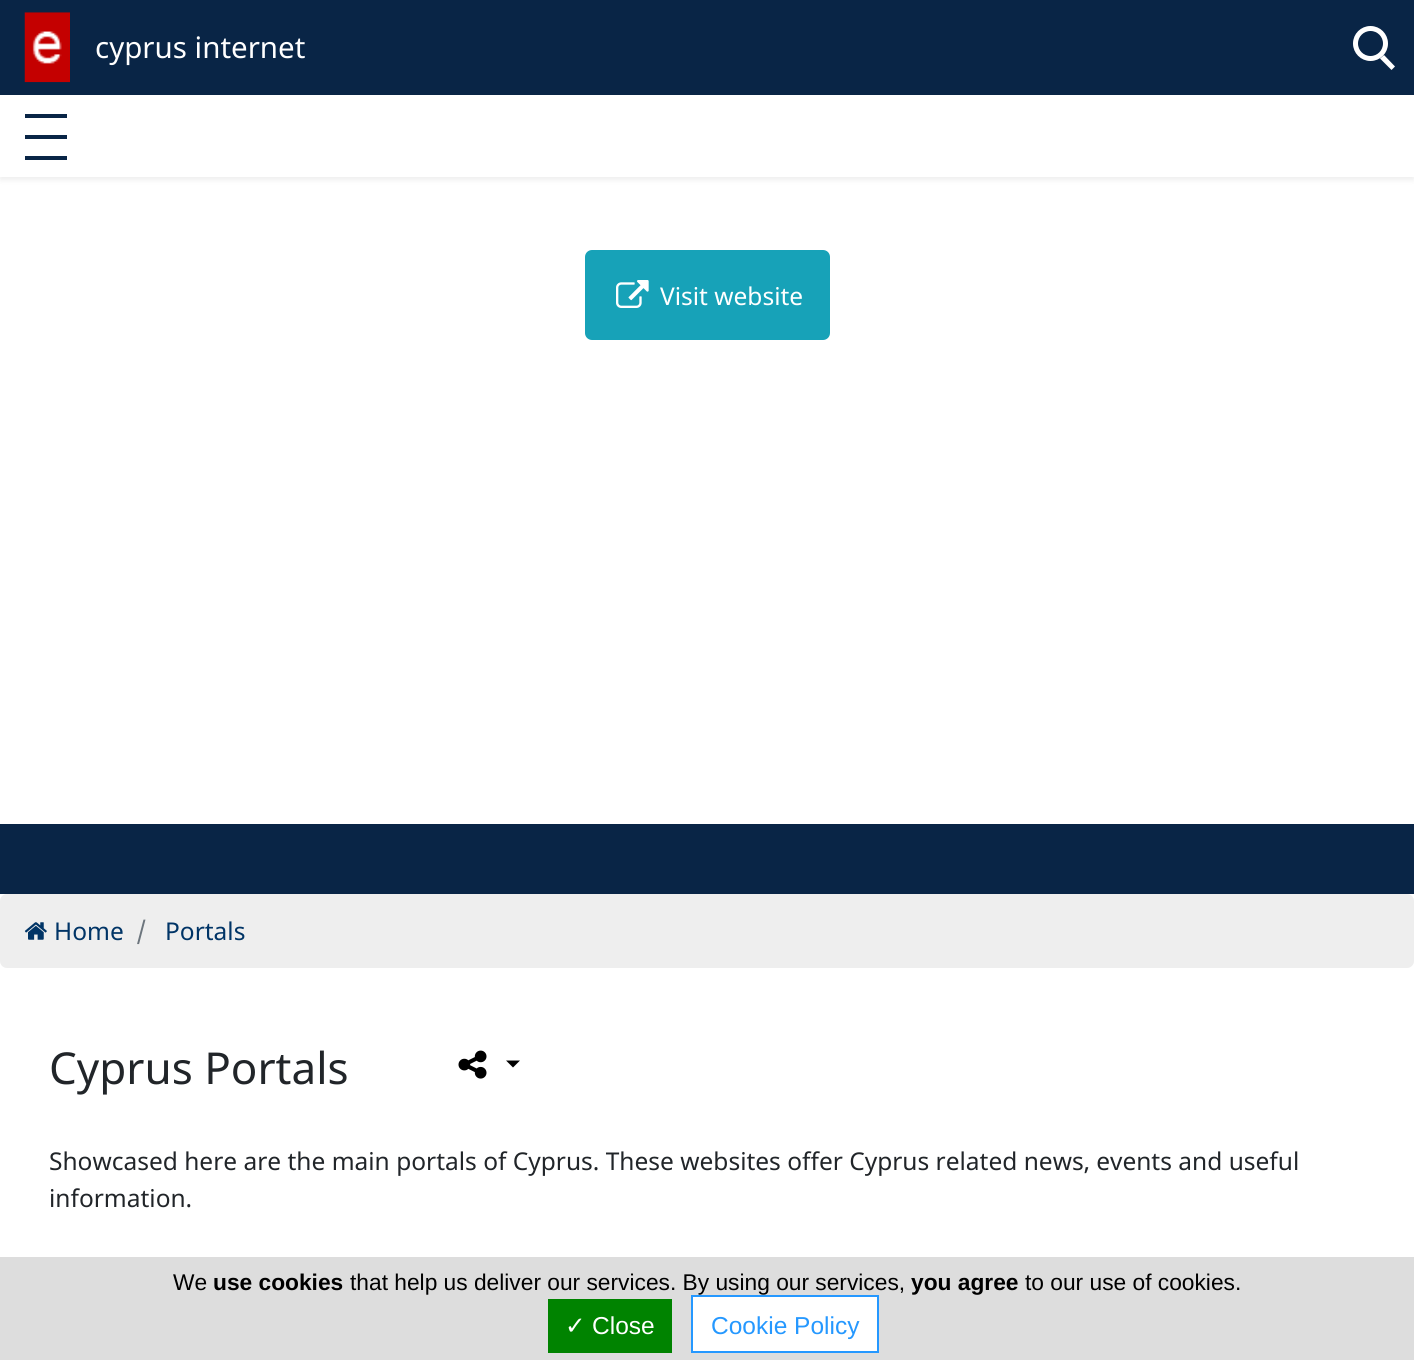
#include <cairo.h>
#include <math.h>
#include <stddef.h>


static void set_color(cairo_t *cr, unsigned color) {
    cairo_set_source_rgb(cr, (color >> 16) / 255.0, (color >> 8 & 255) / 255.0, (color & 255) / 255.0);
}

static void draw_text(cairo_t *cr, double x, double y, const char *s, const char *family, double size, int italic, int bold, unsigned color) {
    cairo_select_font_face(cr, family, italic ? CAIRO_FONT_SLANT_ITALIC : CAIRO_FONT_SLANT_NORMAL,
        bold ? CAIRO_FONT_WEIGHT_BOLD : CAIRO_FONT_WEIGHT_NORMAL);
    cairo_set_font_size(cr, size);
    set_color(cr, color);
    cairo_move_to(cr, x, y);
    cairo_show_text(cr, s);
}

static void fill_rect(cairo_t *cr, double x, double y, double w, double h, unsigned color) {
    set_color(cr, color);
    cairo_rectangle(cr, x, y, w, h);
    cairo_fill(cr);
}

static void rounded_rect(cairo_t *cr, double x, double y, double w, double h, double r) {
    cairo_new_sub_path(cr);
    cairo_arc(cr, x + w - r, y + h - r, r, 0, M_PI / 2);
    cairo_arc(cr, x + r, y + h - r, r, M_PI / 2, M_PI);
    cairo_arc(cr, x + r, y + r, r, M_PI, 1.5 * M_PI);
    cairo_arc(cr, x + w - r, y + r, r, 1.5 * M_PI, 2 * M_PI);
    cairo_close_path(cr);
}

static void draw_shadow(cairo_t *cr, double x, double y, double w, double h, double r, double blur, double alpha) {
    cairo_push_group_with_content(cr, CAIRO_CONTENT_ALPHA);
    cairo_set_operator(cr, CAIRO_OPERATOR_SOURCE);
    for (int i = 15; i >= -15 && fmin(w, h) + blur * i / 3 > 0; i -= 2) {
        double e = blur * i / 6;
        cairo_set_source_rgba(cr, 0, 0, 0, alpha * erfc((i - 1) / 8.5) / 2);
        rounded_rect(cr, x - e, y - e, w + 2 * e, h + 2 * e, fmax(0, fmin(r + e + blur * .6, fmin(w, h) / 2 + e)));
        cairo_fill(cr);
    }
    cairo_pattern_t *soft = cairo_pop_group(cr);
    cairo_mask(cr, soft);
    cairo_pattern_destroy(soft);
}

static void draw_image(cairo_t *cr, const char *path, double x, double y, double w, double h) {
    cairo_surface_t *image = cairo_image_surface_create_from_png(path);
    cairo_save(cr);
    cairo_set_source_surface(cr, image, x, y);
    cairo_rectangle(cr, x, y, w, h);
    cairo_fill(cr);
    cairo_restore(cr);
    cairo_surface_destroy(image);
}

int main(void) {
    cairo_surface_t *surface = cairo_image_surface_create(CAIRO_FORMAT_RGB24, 1414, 1360);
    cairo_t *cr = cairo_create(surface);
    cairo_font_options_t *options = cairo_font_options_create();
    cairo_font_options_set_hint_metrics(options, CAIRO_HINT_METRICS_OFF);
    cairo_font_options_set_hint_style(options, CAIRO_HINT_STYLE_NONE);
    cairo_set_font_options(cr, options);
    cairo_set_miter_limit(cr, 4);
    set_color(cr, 0xFFFFFF);
    cairo_paint(cr);
    fill_rect(cr, 0, 0, 1414, 95, 0x092546);
    draw_image(cr, "assets/img1.png", 24, 12, 46, 71);
    draw_text(cr, 95, 58, "cyprus internet", "Noto Sans", 29.5, 0, 0, 0xFFFFFF);
    cairo_new_path(cr);
    cairo_arc(cr, 1370.5, 43.5, 15, 0, 2 * M_PI);
    cairo_set_line_width(cr, 5);
    cairo_stroke(cr);
    cairo_new_path(cr);
    cairo_move_to(cr, 1384, 55);
    cairo_line_to(cr, 1395, 66.5);
    cairo_line_to(cr, 1391.5, 70);
    cairo_line_to(cr, 1380, 58.5);
    cairo_close_path(cr);
    cairo_fill(cr);
    set_color(cr, 0x000000);
    draw_shadow(cr, 0, 98, 1414, 82, 0, 3, 0.07);
    fill_rect(cr, 0, 95, 1414, 82, 0xFFFFFF);
    fill_rect(cr, 25, 135, 42, 4, 0x092546);
    fill_rect(cr, 25, 114, 42, 4, 0x092546);
    fill_rect(cr, 25, 156, 42, 4, 0x092546);
    set_color(cr, 0x17A2B8);
    rounded_rect(cr, 586, 251, 243, 88, 6);
    cairo_fill_preserve(cr);
    cairo_set_line_width(cr, 2);
    cairo_stroke(cr);
    draw_image(cr, "assets/img2.png", 616, 280, 33, 28);
    draw_text(cr, 660, 305, "Visit website", "Noto Sans", 24.5, 0, 0, 0xFFFFFF);
    fill_rect(cr, 0, 824, 1414, 70, 0x092546);
    set_color(cr, 0xEEEEEE);
    rounded_rect(cr, 0, 894, 1414, 74, 7);
    cairo_fill(cr);
    draw_image(cr, "assets/img3.png", 24, 922, 23, 18);
    draw_text(cr, 54, 940, "Home", "Noto Sans", 24.5, 0, 0, 0x003466);
    draw_text(cr, 136, 940, "/", "Noto Sans", 24.5, 0, 0, 0x6C757D);
    draw_text(cr, 165, 940, "Portals", "Noto Sans", 24.5, 0, 0, 0x003466);
    draw_text(cr, 49, 1084, "Cyprus Portals", "Noto Sans", 44, 0, 0, 0x212529);
    draw_image(cr, "assets/img4.png", 458, 1050, 29, 29);
    set_color(cr, 0x000000);
    cairo_new_path(cr);
    cairo_move_to(cr, 506, 1060.5);
    cairo_line_to(cr, 520, 1060.5);
    cairo_line_to(cr, 513, 1067.5);
    cairo_close_path(cr);
    cairo_fill(cr);
    draw_text(cr, 49, 1170, "Showcased here are the main portals of Cyprus. These websites offer Cyprus related news, events and useful", "Noto Sans", 24.5, 0, 0, 0x212529);
    draw_text(cr, 49, 1207, "information.", "Noto Sans", 24.5, 0, 0, 0x212529);
    fill_rect(cr, 0, 1257, 1414, 103, 0xDDDDDD);
    draw_text(cr, 173, 1290, "We", "Liberation Sans", 22.75, 0, 0, 0x000000);
    draw_text(cr, 213, 1290, "use cookies", "Liberation Sans", 22.75, 0, 1, 0x000000);
    draw_text(cr, 350, 1290, "that help us deliver our services. By using our services,", "Liberation Sans", 22.75, 0, 0, 0x000000);
    draw_text(cr, 911, 1290, "you agree", "Liberation Sans", 22.75, 0, 1, 0x000000);
    draw_text(cr, 1025, 1290, "to our use of cookies.", "Liberation Sans", 22.75, 0, 0, 0x000000);
    fill_rect(cr, 548, 1299, 124, 54, 0x008300);
    draw_text(cr, 565, 1334, "✓", "DejaVu Sans", 24.5, 0, 0, 0xFFFFFF);
    draw_text(cr, 592, 1334, "Close", "Liberation Sans", 24.5, 0, 0, 0xFFFFFF);
    cairo_rectangle(cr, 692, 1296, 186, 56);
    cairo_fill_preserve(cr);
    set_color(cr, 0x2598FF);
    cairo_stroke(cr);
    draw_text(cr, 711, 1334, "Cookie Policy", "Liberation Sans", 24.5, 0, 0, 0x2598FF);
    cairo_surface_write_to_png(surface, "output.png");
    cairo_font_options_destroy(options);
    cairo_destroy(cr);
    cairo_surface_destroy(surface);
    return 0;
}
